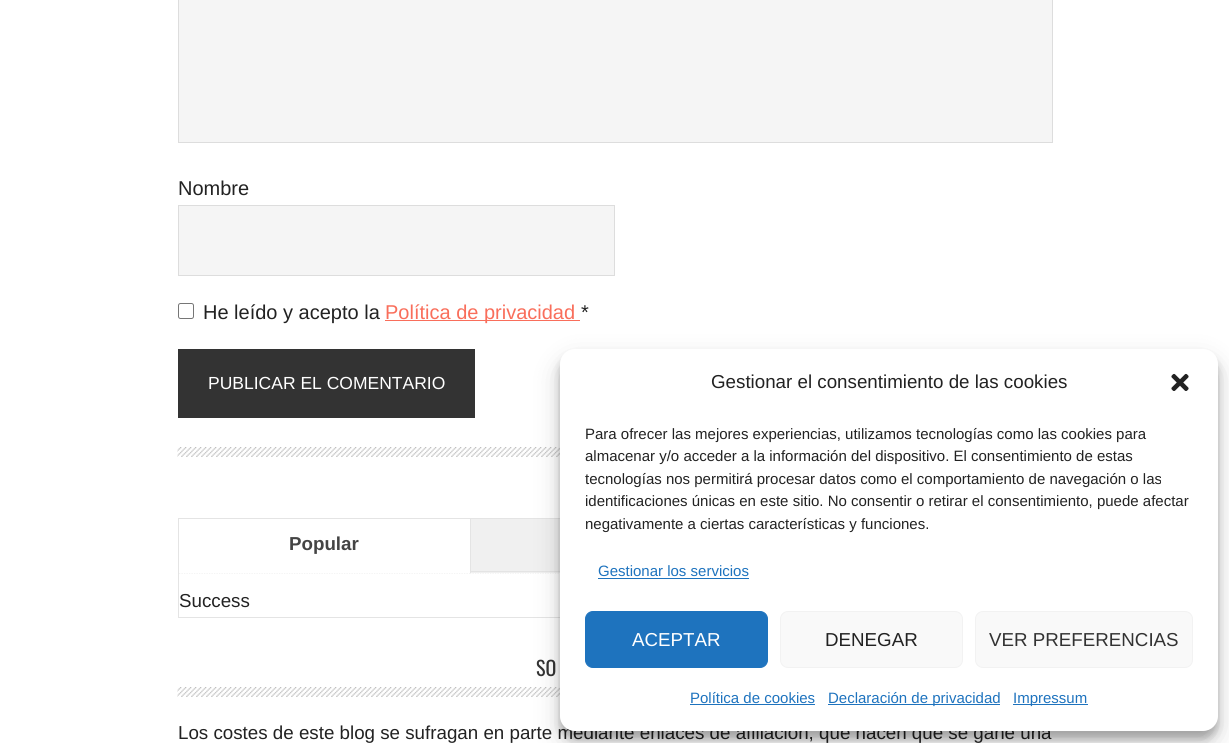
#include <cairo.h>
#include <math.h>
#include <stddef.h>


static void set_color(cairo_t *cr, unsigned color) {
    cairo_set_source_rgb(cr, (color >> 16) / 255.0, (color >> 8 & 255) / 255.0, (color & 255) / 255.0);
}

static void draw_text(cairo_t *cr, double x, double y, const char *s, const char *family, double size, int italic, int bold, unsigned color) {
    cairo_select_font_face(cr, family, italic ? CAIRO_FONT_SLANT_ITALIC : CAIRO_FONT_SLANT_NORMAL,
        bold ? CAIRO_FONT_WEIGHT_BOLD : CAIRO_FONT_WEIGHT_NORMAL);
    cairo_set_font_size(cr, size);
    set_color(cr, color);
    cairo_move_to(cr, x, y);
    cairo_show_text(cr, s);
}

static void fill_rect(cairo_t *cr, double x, double y, double w, double h, unsigned color) {
    set_color(cr, color);
    cairo_rectangle(cr, x, y, w, h);
    cairo_fill(cr);
}

static void rounded_rect(cairo_t *cr, double x, double y, double w, double h, double r) {
    cairo_new_sub_path(cr);
    cairo_arc(cr, x + w - r, y + h - r, r, 0, M_PI / 2);
    cairo_arc(cr, x + r, y + h - r, r, M_PI / 2, M_PI);
    cairo_arc(cr, x + r, y + r, r, M_PI, 1.5 * M_PI);
    cairo_arc(cr, x + w - r, y + r, r, 1.5 * M_PI, 2 * M_PI);
    cairo_close_path(cr);
}

static void draw_shadow(cairo_t *cr, double x, double y, double w, double h, double r, double blur, double alpha) {
    cairo_push_group_with_content(cr, CAIRO_CONTENT_ALPHA);
    cairo_set_operator(cr, CAIRO_OPERATOR_SOURCE);
    for (int i = 15; i >= -15 && fmin(w, h) + blur * i / 3 > 0; i -= 2) {
        double e = blur * i / 6;
        cairo_set_source_rgba(cr, 0, 0, 0, alpha * erfc((i - 1) / 8.5) / 2);
        rounded_rect(cr, x - e, y - e, w + 2 * e, h + 2 * e, fmax(0, fmin(r + e + blur * .6, fmin(w, h) / 2 + e)));
        cairo_fill(cr);
    }
    cairo_pattern_t *soft = cairo_pop_group(cr);
    cairo_mask(cr, soft);
    cairo_pattern_destroy(soft);
}

static void draw_image(cairo_t *cr, const char *path, double x, double y, double w, double h) {
    cairo_surface_t *image = cairo_image_surface_create_from_png(path);
    cairo_save(cr);
    cairo_set_source_surface(cr, image, x, y);
    cairo_rectangle(cr, x, y, w, h);
    cairo_fill(cr);
    cairo_restore(cr);
    cairo_surface_destroy(image);
}

int main(void) {
    cairo_surface_t *surface = cairo_image_surface_create(CAIRO_FORMAT_RGB24, 1229, 743);
    cairo_t *cr = cairo_create(surface);
    cairo_font_options_t *options = cairo_font_options_create();
    cairo_font_options_set_hint_metrics(options, CAIRO_HINT_METRICS_OFF);
    cairo_font_options_set_hint_style(options, CAIRO_HINT_STYLE_NONE);
    cairo_set_font_options(cr, options);
    cairo_set_miter_limit(cr, 4);
    set_color(cr, 0xFFFFFF);
    cairo_paint(cr);
    set_color(cr, 0xF5F5F5);
    cairo_rectangle(cr, 178.5, -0.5, 874, 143);
    cairo_fill_preserve(cr);
    set_color(cr, 0xDDDDDD);
    cairo_set_line_width(cr, 1);
    cairo_stroke(cr);
    draw_text(cr, 178, 195, "Nombre", "Liberation Sans", 20, 0, 0, 0x222222);
    set_color(cr, 0xF5F5F5);
    cairo_rectangle(cr, 178.5, 205.5, 436, 70);
    cairo_fill_preserve(cr);
    set_color(cr, 0xDDDDDD);
    cairo_stroke(cr);
    rounded_rect(cr, 178.5, 303.5, 15, 15, 2);
    set_color(cr, 0x767676);
    cairo_stroke(cr);
    draw_text(cr, 203, 319, "He leído y acepto la", "Liberation Sans", 20, 0, 0, 0x222222);
    fill_rect(cr, 385, 320, 195, 1, 0xF96E5B);
    draw_text(cr, 385, 319, "Política de privacidad", "Liberation Sans", 20, 0, 0, 0xF96E5B);
    draw_text(cr, 581, 319, "*", "Liberation Sans", 20, 0, 0, 0x222222);
    fill_rect(cr, 178, 349, 297, 69, 0x333333);
    draw_text(cr, 208, 389, "PUBLICAR EL COMENTARIO", "Liberation Sans", 17.5, 0, 0, 0xFFFFFF);
    draw_image(cr, "assets/img1.png", 177, 447, 383, 10);
    cairo_rectangle(cr, 178.5, 518.5, 874, 99);
    set_color(cr, 0xE4E4E4);
    cairo_stroke(cr);
    cairo_new_path(cr);
    cairo_move_to(cr, 179, 573);
    cairo_line_to(cr, 470, 573);
    set_color(cr, 0xECECEC);
    cairo_set_line_width(cr, 1.2);
    cairo_set_dash(cr, (double[]){1.25, 1.25}, 2, 0);
    cairo_stroke(cr);
    fill_rect(cr, 179, 572, 291, 1, 0xFFFFFF);
    draw_text(cr, 289, 550, "Popular", "Liberation Sans", 18.75, 0, 1, 0x444444);
    cairo_new_path(cr);
    cairo_move_to(cr, 470, 573);
    cairo_line_to(cr, 760, 573);
    set_color(cr, 0xECECEC);
    cairo_stroke(cr);
    fill_rect(cr, 471, 519, 89, 54, 0xF0F0F0);
    fill_rect(cr, 470, 571, 90, 1, 0xE4E4E4);
    fill_rect(cr, 470, 519, 1, 54, 0xE4E4E4);
    draw_text(cr, 179, 607, "Success", "Liberation Sans", 18.75, 0, 0, 0x222222);
    draw_image(cr, "assets/img1.png", 177, 687, 383, 10);
    draw_text(cr, 536, 676, "SO", "Oswald", 20, 0, 0, 0x333333);
    draw_text(cr, 178, 739, "Los costes de este blog se sufragan en parte mediante enlaces de afiliación, que hacen que se gane una", "Liberation Sans", 18.75, 0, 0, 0x222222);
    set_color(cr, 0x000000);
    draw_shadow(cr, 560, 356, 658, 383, 15, 4, 0.23);
    draw_shadow(cr, 560, 361, 658, 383, 15, 12.5, 0.19);
    set_color(cr, 0xFFFFFF);
    rounded_rect(cr, 560, 349, 658, 382, 15);
    cairo_fill(cr);
    draw_text(cr, 711, 388, "Gestionar el consentimiento de las cookies", "Liberation Sans", 18.75, 0, 0, 0x222222);
    draw_image(cr, "assets/img2.png", 1171, 373, 18, 18);
    draw_text(cr, 585, 439, "Para ofrecer las mejores experiencias, utilizamos tecnologías como las cookies para", "Liberation Sans", 15, 0, 0, 0x222222);
    draw_text(cr, 585, 461, "almacenar y/o acceder a la información del dispositivo. El consentimiento de estas", "Liberation Sans", 15, 0, 0, 0x222222);
    draw_text(cr, 585, 484, "tecnologías nos permitirá procesar datos como el comportamiento de navegación o las", "Liberation Sans", 15, 0, 0, 0x222222);
    draw_text(cr, 585, 506, "identificaciones únicas en este sitio. No consentir o retirar el consentimiento, puede afectar", "Liberation Sans", 15, 0, 0, 0x222222);
    draw_text(cr, 585, 529, "negativamente a ciertas características y funciones.", "Liberation Sans", 15, 0, 0, 0x222222);
    draw_text(cr, 598, 576, "Gestionar los servicios", "Liberation Sans", 15, 0, 0, 0x1E73BE);
    fill_rect(cr, 598, 578, 151, 1, 0x1E73BE);
    rounded_rect(cr, 585.5, 611.5, 182, 56, 7.5);
    cairo_fill_preserve(cr);
    cairo_set_line_width(cr, 1);
    cairo_set_dash(cr, NULL, 0, 0);
    cairo_stroke(cr);
    draw_text(cr, 632, 646, "ACEPTAR", "Liberation Sans", 18.75, 0, 0, 0xFFFFFF);
    set_color(cr, 0xF9F9F9);
    rounded_rect(cr, 780.5, 611.5, 182, 56, 7.5);
    cairo_fill_preserve(cr);
    set_color(cr, 0xF2F2F2);
    cairo_stroke(cr);
    draw_text(cr, 825, 646, "DENEGAR", "Liberation Sans", 18.75, 0, 0, 0x222222);
    set_color(cr, 0xF9F9F9);
    rounded_rect(cr, 975.5, 611.5, 217, 56, 7.5);
    cairo_fill_preserve(cr);
    set_color(cr, 0xF2F2F2);
    cairo_stroke(cr);
    draw_text(cr, 989, 646, "VER PREFERENCIAS", "Liberation Sans", 18.75, 0, 0, 0x333333);
    draw_text(cr, 690, 703, "Política de cookies", "Liberation Sans", 15, 0, 0, 0x1E73BE);
    fill_rect(cr, 690, 704, 125, 1, 0x1E73BE);
    fill_rect(cr, 828, 704, 172, 1, 0x1E73BE);
    draw_text(cr, 828, 703, "Declaración de privacidad", "Liberation Sans", 15, 0, 0, 0x1E73BE);
    fill_rect(cr, 1013, 704, 75, 1, 0x1E73BE);
    draw_text(cr, 1013, 703, "Impressum", "Liberation Sans", 15, 0, 0, 0x1E73BE);
    cairo_surface_write_to_png(surface, "output.png");
    cairo_font_options_destroy(options);
    cairo_destroy(cr);
    cairo_surface_destroy(surface);
    return 0;
}
